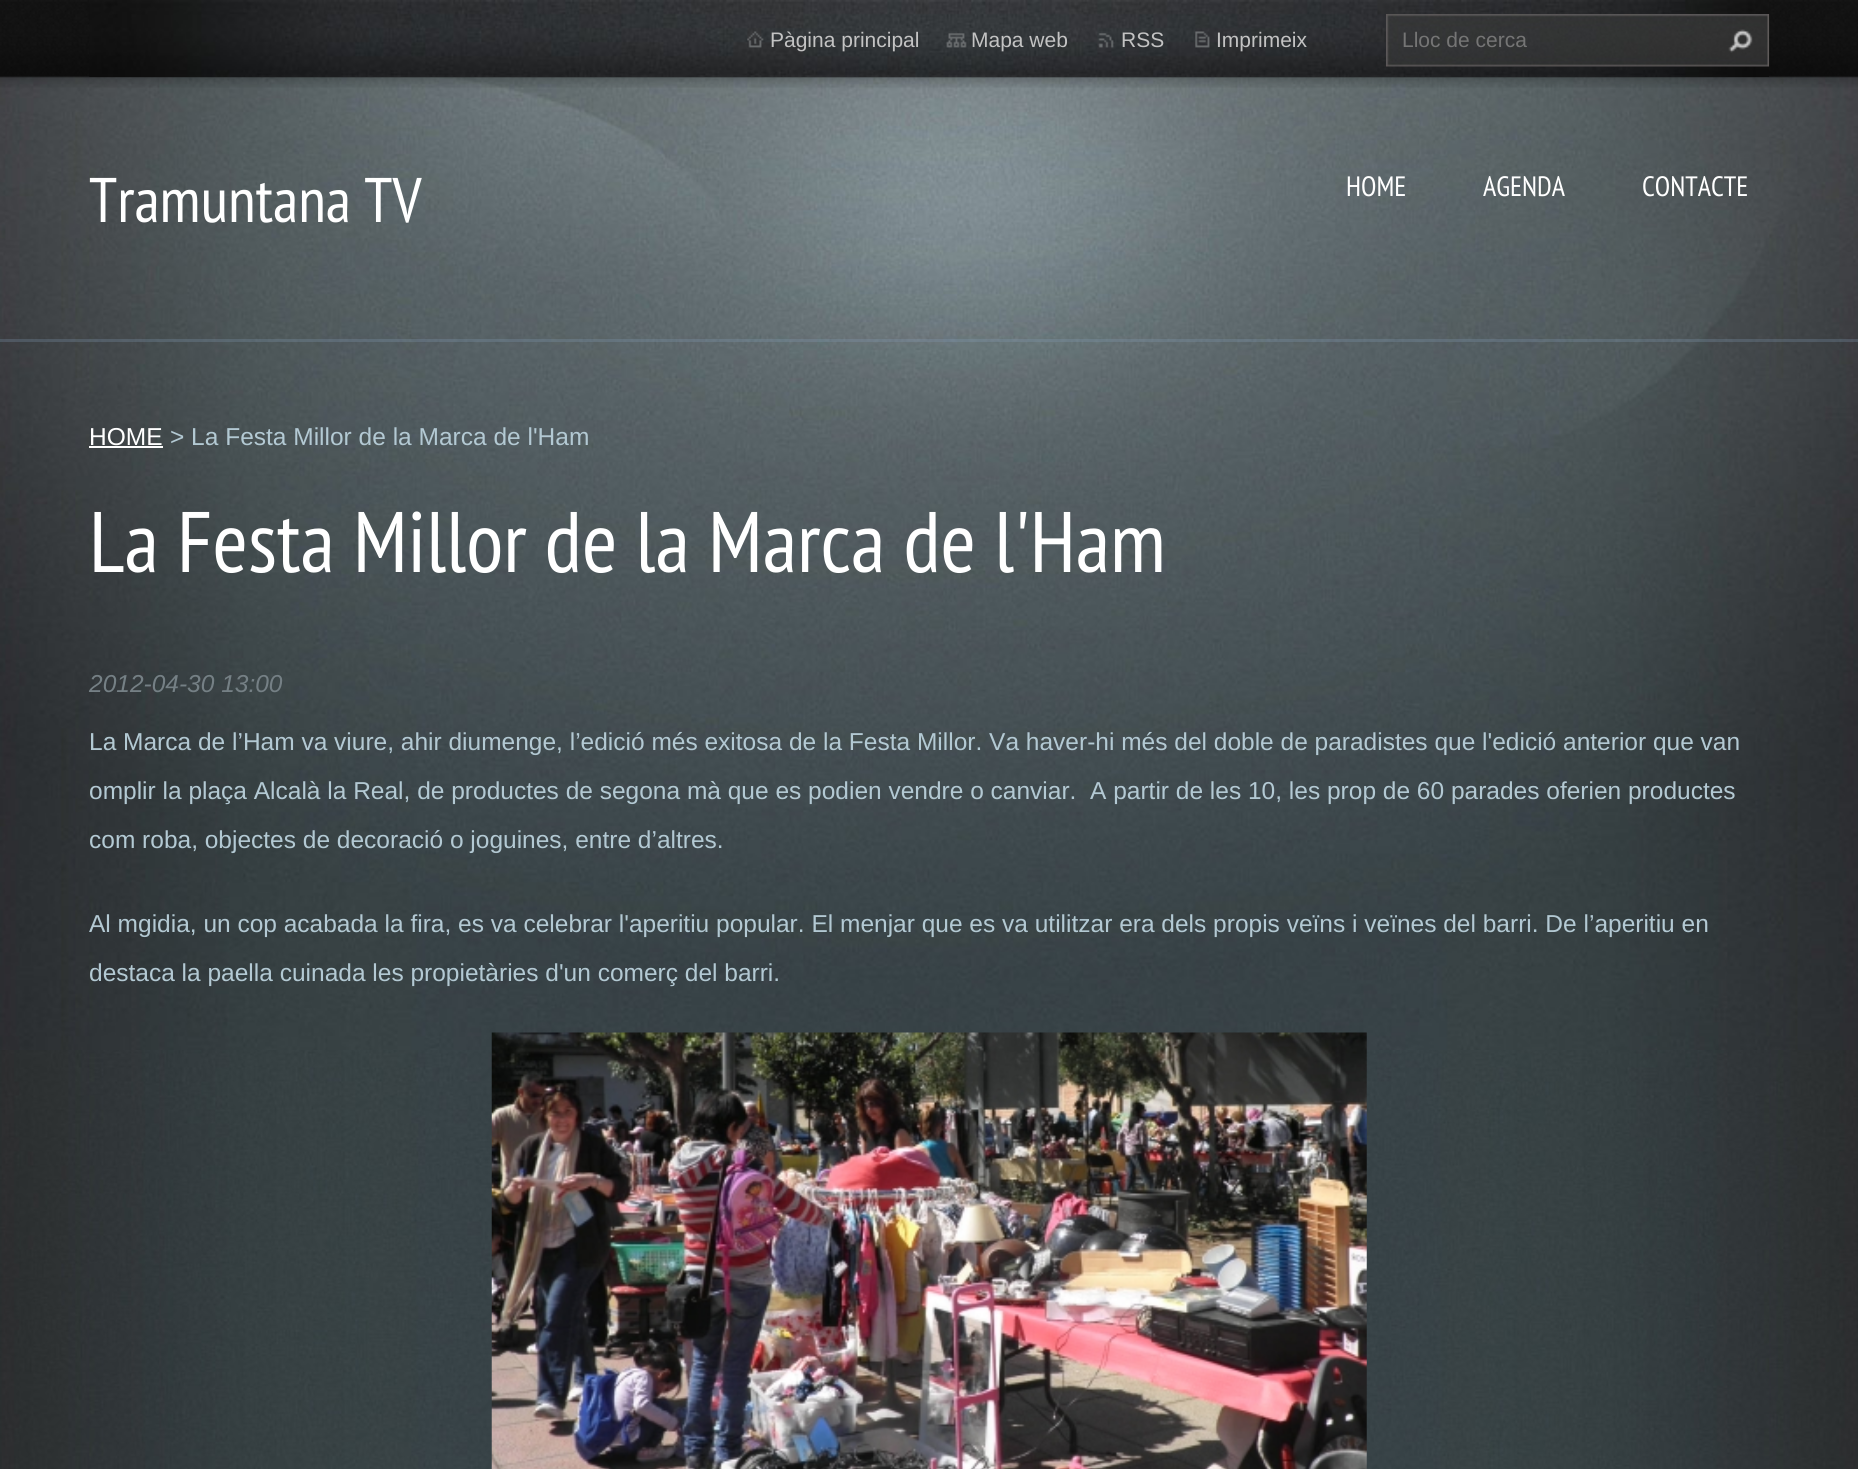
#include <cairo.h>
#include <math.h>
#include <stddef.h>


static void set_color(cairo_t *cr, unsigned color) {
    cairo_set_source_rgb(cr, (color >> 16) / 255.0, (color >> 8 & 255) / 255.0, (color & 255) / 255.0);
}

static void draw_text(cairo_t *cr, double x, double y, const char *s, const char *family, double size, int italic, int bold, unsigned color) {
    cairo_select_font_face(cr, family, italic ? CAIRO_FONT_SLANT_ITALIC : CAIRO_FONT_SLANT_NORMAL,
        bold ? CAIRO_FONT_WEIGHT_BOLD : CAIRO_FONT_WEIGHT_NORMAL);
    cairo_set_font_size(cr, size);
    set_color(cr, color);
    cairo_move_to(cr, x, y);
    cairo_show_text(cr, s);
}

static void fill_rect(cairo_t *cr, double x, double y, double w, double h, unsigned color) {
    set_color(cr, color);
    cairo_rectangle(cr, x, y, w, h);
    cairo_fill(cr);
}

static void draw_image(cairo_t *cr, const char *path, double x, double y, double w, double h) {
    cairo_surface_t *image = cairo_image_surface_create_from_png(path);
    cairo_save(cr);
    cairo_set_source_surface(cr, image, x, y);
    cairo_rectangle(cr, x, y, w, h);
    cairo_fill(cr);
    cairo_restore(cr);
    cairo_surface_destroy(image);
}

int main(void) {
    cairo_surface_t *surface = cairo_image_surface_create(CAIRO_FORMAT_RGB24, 1858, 1469);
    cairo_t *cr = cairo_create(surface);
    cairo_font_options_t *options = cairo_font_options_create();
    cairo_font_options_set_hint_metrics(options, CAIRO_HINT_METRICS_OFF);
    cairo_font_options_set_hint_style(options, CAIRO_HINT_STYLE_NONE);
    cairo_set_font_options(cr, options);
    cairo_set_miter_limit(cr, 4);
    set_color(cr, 0xFFFFFF);
    cairo_paint(cr);
    draw_image(cr, "assets/img1.png", 0, 1050, 1858, 419);
    draw_image(cr, "assets/img2.png", 0, 76, 1858, 974);
    cairo_set_source_rgba(cr, 0.514, 0.62, 0.725, 0.26);
    cairo_rectangle(cr, 0, 339, 1858, 3);
    cairo_fill(cr);
    draw_image(cr, "assets/img3.png", 0, 0, 1858, 88);
    draw_image(cr, "assets/img4.png", 89, 0, 1680, 77);
    draw_image(cr, "assets/img5.png", 747, 31, 17, 17);
    draw_text(cr, 770, 47, "Pàgina principal", "Liberation Sans", 21, 0, 0, 0xC3C3C3);
    draw_image(cr, "assets/img6.png", 946, 33, 21, 15);
    draw_text(cr, 971, 47, "Mapa web", "Liberation Sans", 21, 0, 0, 0xC3C3C3);
    draw_image(cr, "assets/img7.png", 1098, 33, 16, 15);
    draw_text(cr, 1121, 47, "RSS", "Liberation Sans", 21, 0, 0, 0xC3C3C3);
    draw_image(cr, "assets/img8.png", 1195, 31, 15, 17);
    draw_text(cr, 1216, 47, "Imprimeix", "Liberation Sans", 21, 0, 0, 0xC3C3C3);
    draw_image(cr, "assets/img9.png", 1386, 14, 384, 53);
    draw_text(cr, 1402, 47, "Lloc de cerca", "Liberation Sans", 21, 0, 0, 0x757575);
    draw_image(cr, "assets/img10.png", 1728, 29, 25, 24);
    draw_text(cr, 89, 222, "Tramuntana TV", "PT Sans Narrow", 63, 0, 0, 0xFFFFFF);
    draw_text(cr, 1346, 196, "HOME", "PT Sans Narrow", 28, 0, 0, 0xFFFFFF);
    draw_text(cr, 1483, 196, "AGENDA", "PT Sans Narrow", 28, 0, 0, 0xFFFFFF);
    draw_text(cr, 1642, 196, "CONTACTE", "PT Sans Narrow", 28, 0, 0, 0xFFFFFF);
    draw_text(cr, 89, 445, "HOME", "Liberation Sans", 24.5, 0, 0, 0xFFFFFF);
    fill_rect(cr, 89, 446, 74, 2, 0xFFFFFF);
    draw_text(cr, 170, 445, "> La Festa Millor de la Marca de l'Ham", "Liberation Sans", 24.5, 0, 0, 0xB3C9D3);
    draw_text(cr, 89, 572, "La Festa Millor de la Marca de l'Ham", "PT Sans Narrow", 85.75, 0, 0, 0xFFFFFF);
    draw_text(cr, 89, 692, "2012-04-30 13:00", "Liberation Sans", 24.5, 1, 0, 0x758085);
    draw_text(cr, 89, 750, "La Marca de l’Ham va viure, ahir diumenge, l’edició més exitosa de la Festa Millor. Va haver-hi més del doble de paradistes que l'edició anterior que van", "Liberation Sans", 24.5, 0, 0, 0xB3C9D3);
    draw_text(cr, 89, 799, "omplir la plaça Alcalà la Real, de productes de segona mà que es podien vendre o canviar.  A partir de les 10, les prop de 60 parades oferien productes", "Liberation Sans", 24.5, 0, 0, 0xB3C9D3);
    draw_text(cr, 89, 848, "com roba, objectes de decoració o joguines, entre d’altres.", "Liberation Sans", 24.5, 0, 0, 0xB3C9D3);
    draw_text(cr, 89, 932, "Al mgidia, un cop acabada la fira, es va celebrar l'aperitiu popular. El menjar que es va utilitzar era dels propis veïns i veïnes del barri. De l’aperitiu en", "Liberation Sans", 24.5, 0, 0, 0xB3C9D3);
    draw_text(cr, 89, 981, "destaca la paella cuinada les propietàries d'un comerç del barri.", "Liberation Sans", 24.5, 0, 0, 0xB3C9D3);
    draw_image(cr, "assets/img11.png", 491, 1032, 876, 437);
    cairo_surface_write_to_png(surface, "output.png");
    cairo_font_options_destroy(options);
    cairo_destroy(cr);
    cairo_surface_destroy(surface);
    return 0;
}
